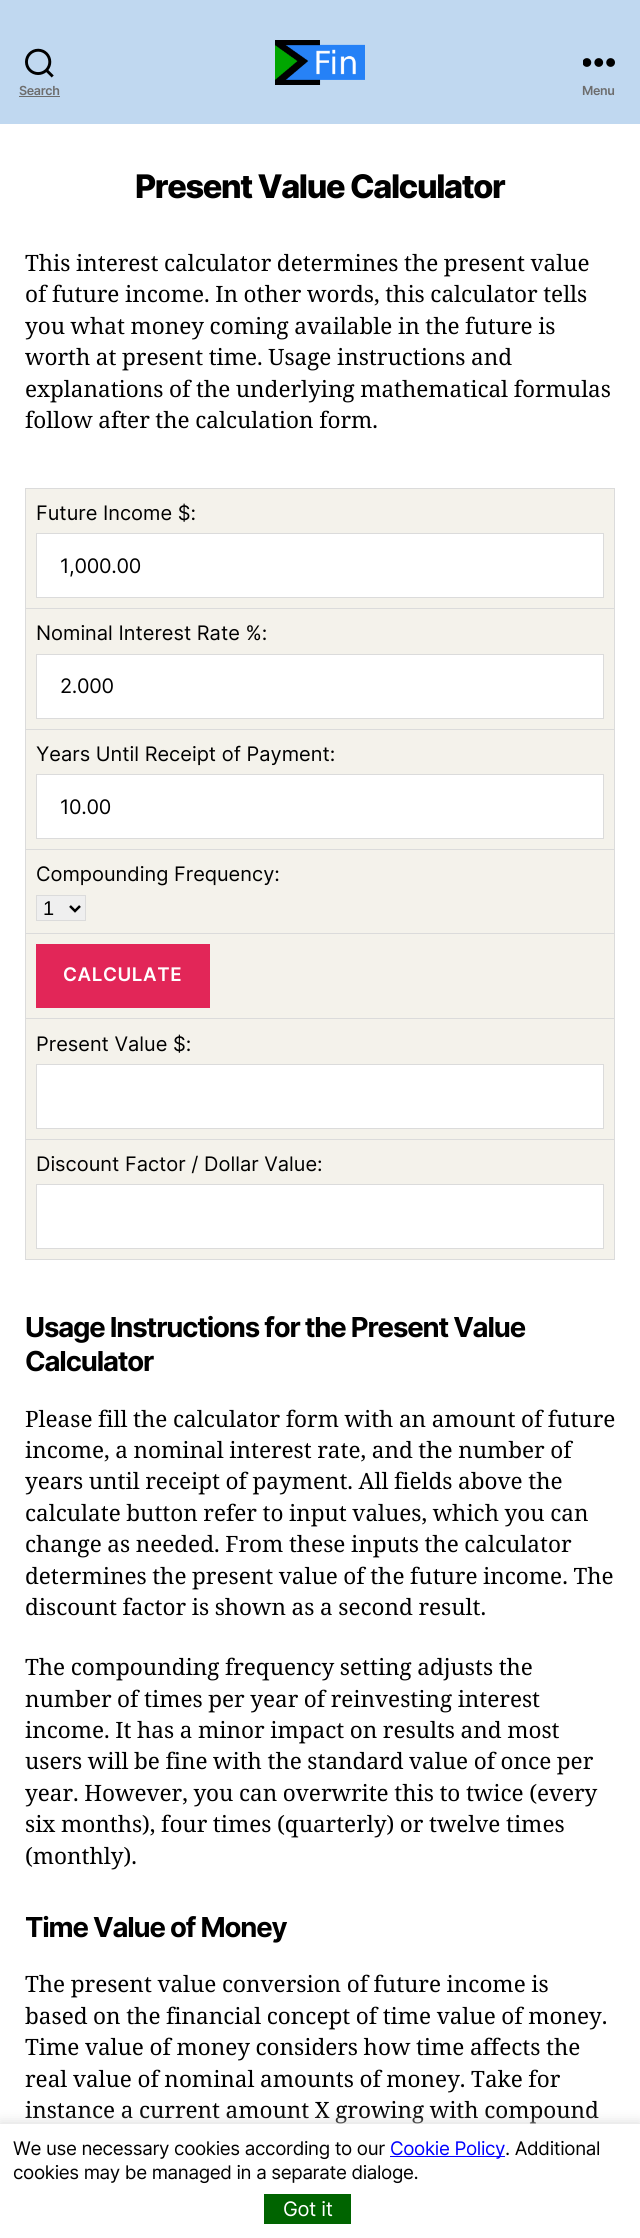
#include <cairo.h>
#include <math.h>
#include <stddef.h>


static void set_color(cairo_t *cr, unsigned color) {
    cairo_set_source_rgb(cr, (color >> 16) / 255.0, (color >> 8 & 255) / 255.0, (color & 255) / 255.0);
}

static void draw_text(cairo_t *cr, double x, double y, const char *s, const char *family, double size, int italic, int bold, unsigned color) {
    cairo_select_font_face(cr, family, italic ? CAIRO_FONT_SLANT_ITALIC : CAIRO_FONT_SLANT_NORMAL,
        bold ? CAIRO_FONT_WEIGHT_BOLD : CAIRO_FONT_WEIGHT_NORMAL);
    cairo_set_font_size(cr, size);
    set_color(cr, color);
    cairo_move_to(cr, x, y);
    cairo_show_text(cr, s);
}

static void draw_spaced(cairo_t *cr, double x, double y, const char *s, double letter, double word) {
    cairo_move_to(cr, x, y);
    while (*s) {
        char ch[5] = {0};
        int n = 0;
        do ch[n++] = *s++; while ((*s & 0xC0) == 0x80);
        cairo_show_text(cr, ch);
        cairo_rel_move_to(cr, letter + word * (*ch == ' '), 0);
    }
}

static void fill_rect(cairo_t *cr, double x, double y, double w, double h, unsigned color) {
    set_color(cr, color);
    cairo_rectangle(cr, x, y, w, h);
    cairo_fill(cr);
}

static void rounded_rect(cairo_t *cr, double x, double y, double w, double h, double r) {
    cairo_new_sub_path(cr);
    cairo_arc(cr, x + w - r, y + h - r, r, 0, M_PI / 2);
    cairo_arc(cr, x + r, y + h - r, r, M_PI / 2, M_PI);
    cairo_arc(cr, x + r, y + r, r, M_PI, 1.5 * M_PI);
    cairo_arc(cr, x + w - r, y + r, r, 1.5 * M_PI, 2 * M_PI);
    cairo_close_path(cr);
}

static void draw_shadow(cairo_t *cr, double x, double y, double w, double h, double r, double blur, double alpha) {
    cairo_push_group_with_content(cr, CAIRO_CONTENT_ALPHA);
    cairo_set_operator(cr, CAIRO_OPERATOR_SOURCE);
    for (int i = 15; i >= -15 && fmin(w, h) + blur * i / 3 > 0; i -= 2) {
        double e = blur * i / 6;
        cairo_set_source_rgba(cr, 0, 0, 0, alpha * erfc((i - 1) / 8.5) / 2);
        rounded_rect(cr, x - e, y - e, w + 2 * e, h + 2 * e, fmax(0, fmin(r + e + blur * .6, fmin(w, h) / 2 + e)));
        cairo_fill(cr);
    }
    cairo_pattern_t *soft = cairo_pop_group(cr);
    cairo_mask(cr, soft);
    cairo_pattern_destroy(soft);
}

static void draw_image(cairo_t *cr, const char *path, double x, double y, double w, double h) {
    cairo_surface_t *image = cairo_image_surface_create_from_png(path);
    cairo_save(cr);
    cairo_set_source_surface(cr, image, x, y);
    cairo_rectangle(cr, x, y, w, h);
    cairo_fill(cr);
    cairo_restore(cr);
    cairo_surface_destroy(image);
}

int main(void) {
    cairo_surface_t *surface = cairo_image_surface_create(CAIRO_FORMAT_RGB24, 640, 2238);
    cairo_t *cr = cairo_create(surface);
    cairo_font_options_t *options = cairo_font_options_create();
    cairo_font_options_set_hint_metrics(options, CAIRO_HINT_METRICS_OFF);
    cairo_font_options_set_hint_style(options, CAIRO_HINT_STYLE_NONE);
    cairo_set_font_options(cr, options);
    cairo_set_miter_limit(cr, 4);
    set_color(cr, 0xFFFFFF);
    cairo_paint(cr);
    fill_rect(cr, 0, 0, 640, 124, 0xC0D8F0);
    draw_image(cr, "assets/img1.png", 275, 40, 90, 45);
    draw_image(cr, "assets/img2.png", 25, 48, 29, 30);
    cairo_select_font_face(cr, "Inter SemiBold", CAIRO_FONT_SLANT_NORMAL, CAIRO_FONT_WEIGHT_NORMAL);
    cairo_set_font_size(cr, 12.5);
    set_color(cr, 0x6D6D6D);
    draw_spaced(cr, 19, 95, "Search", -0.35, 0);
    fill_rect(cr, 19, 96, 41, 1, 0x6D6D6D);
    draw_image(cr, "assets/img3.png", 583, 58, 32, 9);
    draw_spaced(cr, 582, 95, "Menu", -0.35, 0);
    cairo_select_font_face(cr, "Inter ExtraBold", CAIRO_FONT_SLANT_NORMAL, CAIRO_FONT_WEIGHT_NORMAL);
    cairo_set_font_size(cr, 32.5);
    set_color(cr, 0x000000);
    draw_spaced(cr, 135, 198, "Present Value Calculator", -1.35, 0);
    cairo_select_font_face(cr, "Noto Serif", CAIRO_FONT_SLANT_NORMAL, CAIRO_FONT_WEIGHT_NORMAL);
    cairo_set_font_size(cr, 22.5);
    draw_spaced(cr, 25, 271, "This interest calculator determines the present value", 0, -0.25);
    draw_spaced(cr, 25, 302, "of future income. In other words, this calculator tells", 0, -0.25);
    draw_spaced(cr, 25, 334, "you what money coming available in the future is", 0, -0.25);
    draw_spaced(cr, 25, 365, "worth at present time. Usage instructions and", 0, -0.25);
    draw_spaced(cr, 25, 397, "explanations of the underlying mathematical formulas", 0, -0.25);
    draw_spaced(cr, 25, 428, "follow after the calculation form.", 0, -0.25);
    fill_rect(cr, 26, 489, 588, 770, 0xF4F2EB);
    fill_rect(cr, 25, 488, 590, 1, 0xDBDBDB);
    fill_rect(cr, 614, 488, 1, 772, 0xDBDBDB);
    fill_rect(cr, 25, 1259, 590, 1, 0xDBDBDB);
    fill_rect(cr, 25, 488, 1, 772, 0xDBDBDB);
    draw_text(cr, 36, 520, "Future Income $:", "Inter", 20, 0, 0, 0x000000);
    set_color(cr, 0xFFFFFF);
    cairo_rectangle(cr, 36.5, 533.5, 567, 64);
    cairo_fill_preserve(cr);
    set_color(cr, 0xDBDBDB);
    cairo_set_line_width(cr, 1);
    cairo_stroke(cr);
    set_color(cr, 0x000000);
    draw_spaced(cr, 60, 573, "1,000.00", -0.25, 0);
    fill_rect(cr, 26, 608, 588, 1, 0xDBDBDB);
    draw_text(cr, 36, 640, "Nominal Interest Rate %:", "Inter", 20, 0, 0, 0x000000);
    set_color(cr, 0xFFFFFF);
    cairo_rectangle(cr, 36.5, 654.5, 567, 64);
    cairo_fill_preserve(cr);
    set_color(cr, 0xDBDBDB);
    cairo_stroke(cr);
    set_color(cr, 0x000000);
    draw_spaced(cr, 60, 693, "2.000", -0.25, 0);
    fill_rect(cr, 26, 729, 588, 1, 0xDBDBDB);
    draw_text(cr, 36, 761, "Years Until Receipt of Payment:", "Inter", 20, 0, 0, 0x000000);
    set_color(cr, 0xFFFFFF);
    cairo_rectangle(cr, 36.5, 774.5, 567, 64);
    cairo_fill_preserve(cr);
    set_color(cr, 0xDBDBDB);
    cairo_stroke(cr);
    set_color(cr, 0x000000);
    draw_spaced(cr, 60, 814, "10.00", -0.25, 0);
    fill_rect(cr, 26, 849, 588, 1, 0xDBDBDB);
    draw_text(cr, 36, 881, "Compounding Frequency:", "Inter", 20, 0, 0, 0x000000);
    set_color(cr, 0xEFEFEF);
    cairo_rectangle(cr, 36.5, 895.5, 49, 25);
    cairo_fill_preserve(cr);
    set_color(cr, 0xDBDBDB);
    cairo_stroke(cr);
    cairo_new_path(cr);
    cairo_move_to(cr, 70, 906);
    cairo_line_to(cr, 75, 911);
    cairo_line_to(cr, 80, 906);
    set_color(cr, 0x000000);
    cairo_set_line_width(cr, 2.5);
    cairo_stroke(cr);
    draw_text(cr, 43, 915, "1", "Liberation Sans", 20, 0, 0, 0x000000);
    fill_rect(cr, 26, 933, 588, 1, 0xDBDBDB);
    fill_rect(cr, 36, 944, 174, 64, 0xE22658);
    cairo_select_font_face(cr, "Inter SemiBold", CAIRO_FONT_SLANT_NORMAL, CAIRO_FONT_WEIGHT_NORMAL);
    cairo_set_font_size(cr, 18.75);
    set_color(cr, 0xFFFFFF);
    draw_spaced(cr, 63, 981, "CALCULATE", 0.6, 0);
    fill_rect(cr, 26, 1018, 588, 1, 0xDBDBDB);
    draw_text(cr, 36, 1051, "Present Value $:", "Inter", 20, 0, 0, 0x000000);
    set_color(cr, 0xFFFFFF);
    cairo_rectangle(cr, 36.5, 1064.5, 567, 64);
    cairo_fill_preserve(cr);
    set_color(cr, 0xDBDBDB);
    cairo_set_line_width(cr, 1);
    cairo_stroke(cr);
    fill_rect(cr, 26, 1139, 588, 1, 0xDBDBDB);
    draw_text(cr, 36, 1171, "Discount Factor / Dollar Value:", "Inter", 20, 0, 0, 0x000000);
    set_color(cr, 0xFFFFFF);
    cairo_rectangle(cr, 36.5, 1184.5, 567, 64);
    cairo_fill_preserve(cr);
    set_color(cr, 0xDBDBDB);
    cairo_stroke(cr);
    cairo_select_font_face(cr, "Inter", CAIRO_FONT_SLANT_NORMAL, CAIRO_FONT_WEIGHT_BOLD);
    cairo_set_font_size(cr, 27.5);
    set_color(cr, 0x000000);
    draw_spaced(cr, 25, 1337, "Usage Instructions for the Present Value", -1.15, 0);
    draw_spaced(cr, 25, 1371, "Calculator", -1.15, 0);
    cairo_select_font_face(cr, "Noto Serif", CAIRO_FONT_SLANT_NORMAL, CAIRO_FONT_WEIGHT_NORMAL);
    cairo_set_font_size(cr, 22.5);
    draw_spaced(cr, 25, 1427, "Please fill the calculator form with an amount of future", 0, -0.25);
    draw_spaced(cr, 25, 1458, "income, a nominal interest rate, and the number of", 0, -0.25);
    draw_spaced(cr, 25, 1489, "years until receipt of payment. All fields above the", 0, -0.25);
    draw_spaced(cr, 25, 1521, "calculate button refer to input values, which you can", 0, -0.25);
    draw_spaced(cr, 25, 1552, "change as needed. From these inputs the calculator", 0, -0.25);
    draw_spaced(cr, 25, 1584, "determines the present value of the future income. The", 0, -0.25);
    draw_spaced(cr, 25, 1615, "discount factor is shown as a second result.", 0, -0.25);
    draw_spaced(cr, 25, 1675, "The compounding frequency setting adjusts the", 0, -0.25);
    draw_spaced(cr, 25, 1707, "number of times per year of reinvesting interest", 0, -0.25);
    draw_spaced(cr, 25, 1738, "income. It has a minor impact on results and most", 0, -0.25);
    draw_spaced(cr, 25, 1769, "users will be fine with the standard value of once per", 0, -0.25);
    draw_spaced(cr, 25, 1801, "year. However, you can overwrite this to twice (every", 0, -0.25);
    draw_spaced(cr, 25, 1832, "six months), four times (quarterly) or twelve times", 0, -0.25);
    draw_text(cr, 25, 1864, "(monthly).", "Noto Serif", 22.5, 0, 0, 0x000000);
    cairo_select_font_face(cr, "Inter", CAIRO_FONT_SLANT_NORMAL, CAIRO_FONT_WEIGHT_BOLD);
    cairo_set_font_size(cr, 27.5);
    draw_spaced(cr, 25, 1937, "Time Value of Money", -1.15, 0);
    cairo_select_font_face(cr, "Noto Serif", CAIRO_FONT_SLANT_NORMAL, CAIRO_FONT_WEIGHT_NORMAL);
    cairo_set_font_size(cr, 22.5);
    draw_spaced(cr, 25, 1992, "The present value conversion of future income is", 0, -0.25);
    draw_spaced(cr, 25, 2024, "based on the financial concept of time value of money.", 0, -0.25);
    draw_spaced(cr, 25, 2055, "Time value of money considers how time affects the", 0, -0.25);
    draw_spaced(cr, 25, 2087, "real value of nominal amounts of money. Take for", 0, -0.25);
    draw_spaced(cr, 25, 2118, "instance a current amount X growing with compound", 0, -0.25);
    set_color(cr, 0xD0D0D0);
    draw_shadow(cr, 0, 2123, 640, 115, 0, 6, 0.82);
    fill_rect(cr, 0, 2124, 640, 114, 0xFFFFFF);
    cairo_select_font_face(cr, "Inter", CAIRO_FONT_SLANT_NORMAL, CAIRO_FONT_WEIGHT_NORMAL);
    cairo_set_font_size(cr, 18.75);
    set_color(cr, 0x000000);
    draw_spaced(cr, 13, 2155, "We use necessary cookies according to our", -0.35, 0);
    fill_rect(cr, 390, 2156, 115, 1, 0x0000FF);
    draw_spaced(cr, 390, 2155, "Cookie Policy", -0.35, 0);
    set_color(cr, 0x000000);
    draw_spaced(cr, 505, 2155, ". Additional", -0.35, 0);
    draw_spaced(cr, 13, 2179, "cookies may be managed in a separate dialoge.", -0.35, 0);
    fill_rect(cr, 264, 2194, 87, 30, 0x006400);
    cairo_set_font_size(cr, 20);
    set_color(cr, 0xFFFFFF);
    draw_spaced(cr, 283, 2216, "Got it", -0.35, 0);
    cairo_surface_write_to_png(surface, "output.png");
    cairo_font_options_destroy(options);
    cairo_destroy(cr);
    cairo_surface_destroy(surface);
    return 0;
}
